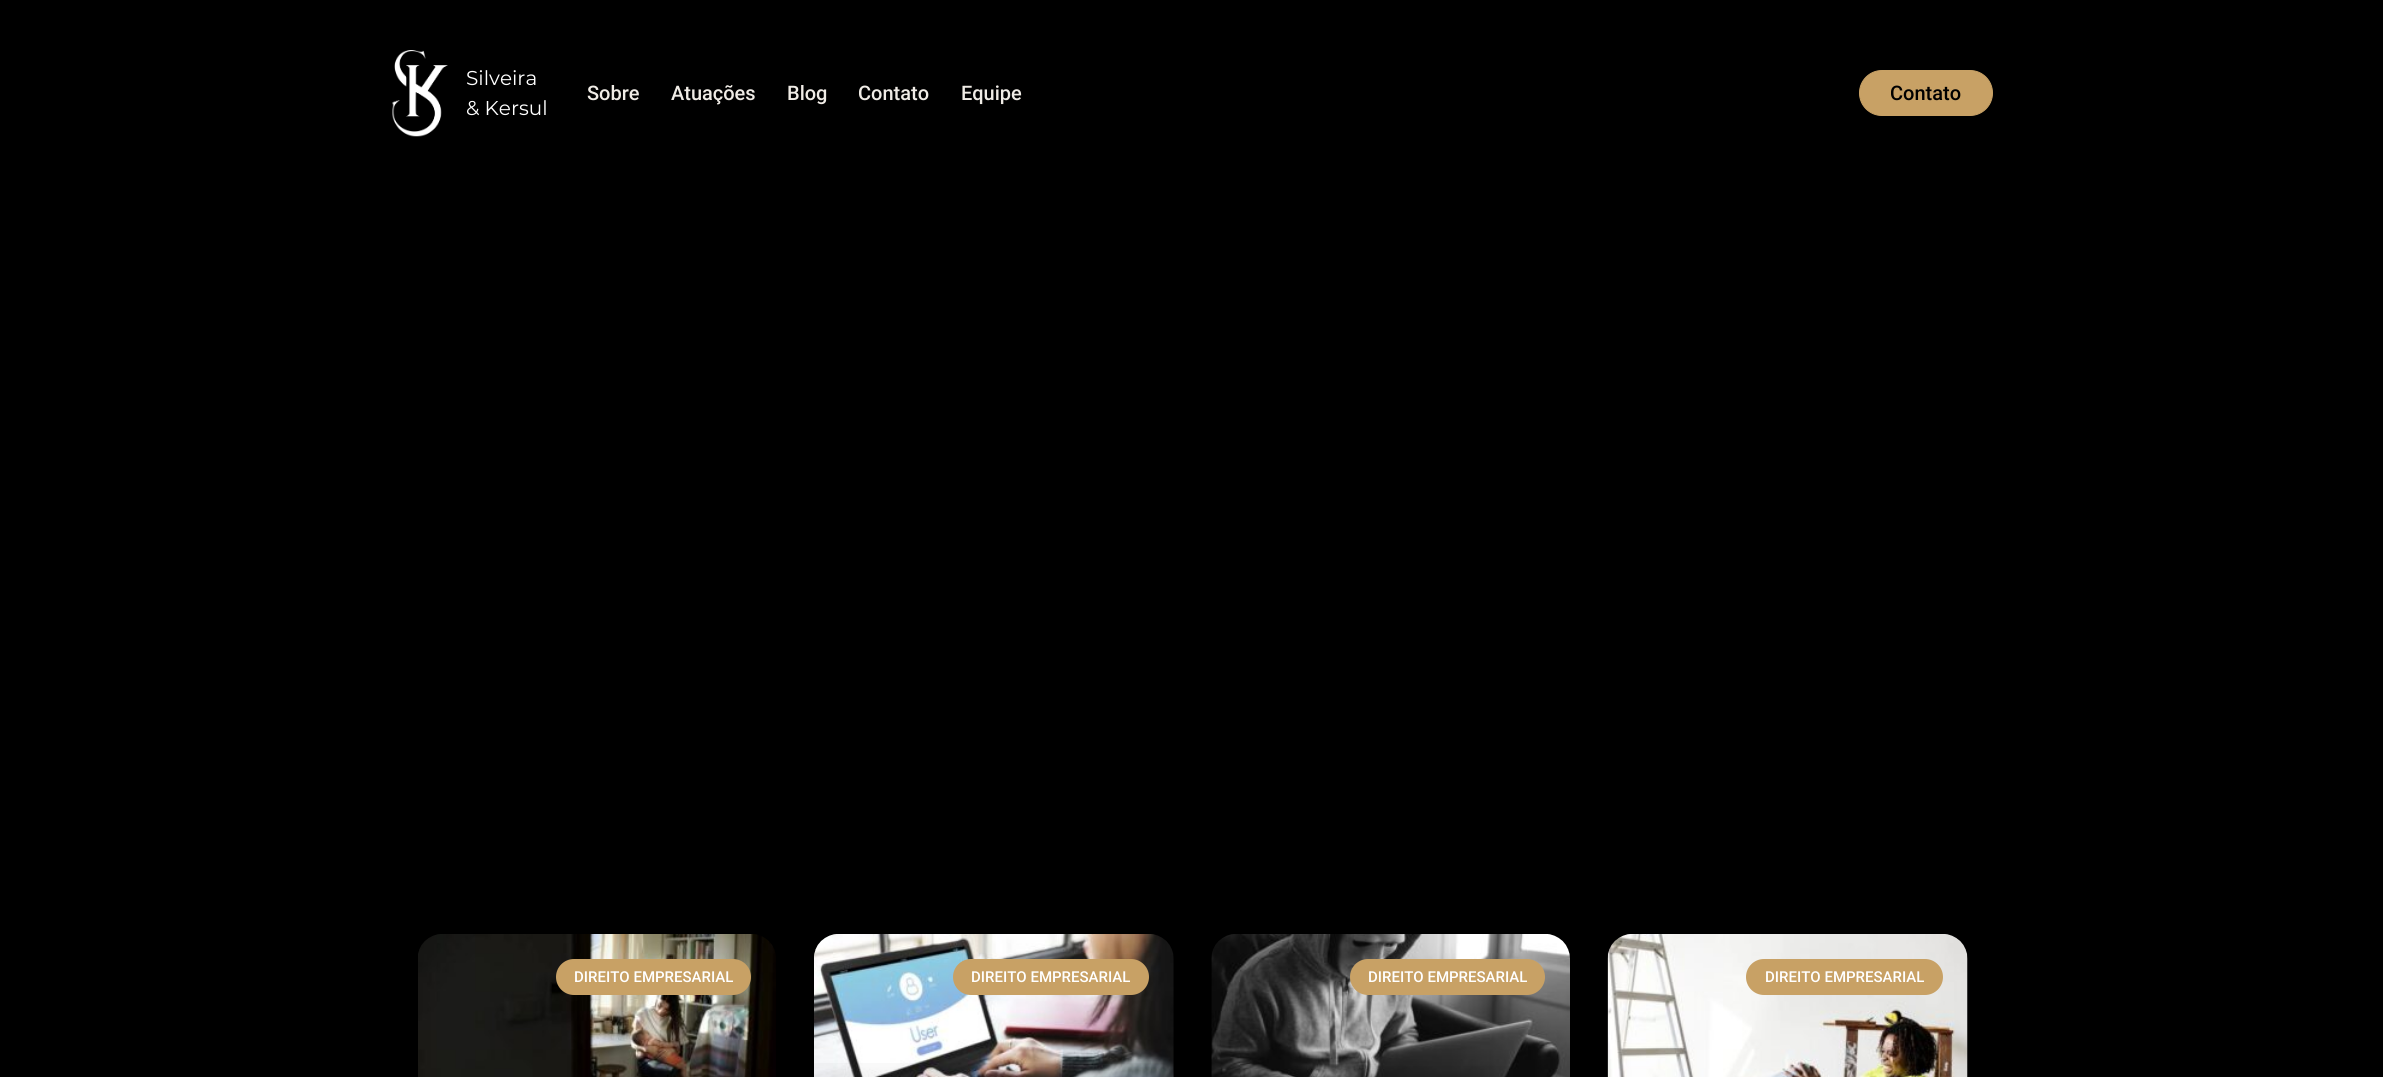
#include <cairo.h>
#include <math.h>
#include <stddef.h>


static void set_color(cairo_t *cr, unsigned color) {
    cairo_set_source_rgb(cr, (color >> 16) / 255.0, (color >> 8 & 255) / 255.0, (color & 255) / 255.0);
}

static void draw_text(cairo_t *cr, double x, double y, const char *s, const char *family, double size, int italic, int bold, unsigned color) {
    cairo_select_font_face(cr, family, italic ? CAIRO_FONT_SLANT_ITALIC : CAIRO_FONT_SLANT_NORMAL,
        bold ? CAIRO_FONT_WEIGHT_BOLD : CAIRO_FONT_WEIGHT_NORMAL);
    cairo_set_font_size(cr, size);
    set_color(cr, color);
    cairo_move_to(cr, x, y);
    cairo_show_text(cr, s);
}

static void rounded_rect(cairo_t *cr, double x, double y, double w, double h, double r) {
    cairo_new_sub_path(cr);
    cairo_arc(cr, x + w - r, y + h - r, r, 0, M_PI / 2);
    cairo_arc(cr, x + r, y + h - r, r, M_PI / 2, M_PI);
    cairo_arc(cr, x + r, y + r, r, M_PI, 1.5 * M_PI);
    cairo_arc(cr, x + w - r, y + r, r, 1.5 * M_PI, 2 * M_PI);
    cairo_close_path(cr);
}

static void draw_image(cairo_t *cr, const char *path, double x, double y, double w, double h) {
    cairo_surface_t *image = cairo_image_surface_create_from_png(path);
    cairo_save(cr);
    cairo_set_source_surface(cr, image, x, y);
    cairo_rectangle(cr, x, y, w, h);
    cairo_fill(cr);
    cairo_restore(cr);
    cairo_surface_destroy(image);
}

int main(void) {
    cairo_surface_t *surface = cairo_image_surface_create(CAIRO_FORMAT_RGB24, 2383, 1077);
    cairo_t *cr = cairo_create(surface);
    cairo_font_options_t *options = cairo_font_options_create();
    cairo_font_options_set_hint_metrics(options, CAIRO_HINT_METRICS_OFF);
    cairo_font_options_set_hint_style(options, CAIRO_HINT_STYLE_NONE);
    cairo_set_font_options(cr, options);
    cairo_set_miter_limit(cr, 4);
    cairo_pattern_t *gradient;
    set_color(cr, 0x000000);
    cairo_paint(cr);
    draw_image(cr, "assets/img1.png", 392, 50, 56, 87);
    draw_text(cr, 466, 85, "Silveira", "Montserrat", 20, 0, 0, 0xFFFFFF);
    draw_text(cr, 466, 115, "& Kersul", "Montserrat", 20, 0, 0, 0xFFFFFF);
    draw_text(cr, 587, 100, "Sobre", "Roboto Medium", 20, 0, 0, 0xF0ECE6);
    draw_text(cr, 671, 100, "Atuações", "Roboto Medium", 20, 0, 0, 0xF0ECE6);
    draw_text(cr, 787, 100, "Blog", "Roboto Medium", 20, 0, 0, 0xF0ECE6);
    draw_text(cr, 858, 100, "Contato", "Roboto Medium", 20, 0, 0, 0xF0ECE6);
    draw_text(cr, 961, 100, "Equipe", "Roboto Medium", 20, 0, 0, 0xF0ECE6);
    set_color(cr, 0xC8A165);
    rounded_rect(cr, 1859.5, 70.5, 133, 45, 22.5);
    cairo_fill_preserve(cr);
    cairo_set_line_width(cr, 1);
    cairo_stroke(cr);
    draw_text(cr, 1890, 100, "Contato", "Roboto Medium", 20, 0, 0, 0x000000);
    draw_image(cr, "assets/img2.png", 418, 934, 358, 143);
    set_color(cr, 0xC8A165);
    rounded_rect(cr, 556, 959, 195, 36, 18);
    cairo_fill(cr);
    draw_text(cr, 574, 982, "DIREITO EMPRESARIAL", "Roboto Medium", 15, 0, 0, 0xFFFFFF);
    draw_image(cr, "assets/img3.png", 814, 934, 360, 143);
    gradient = cairo_pattern_create_linear(994, 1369, 994, 934);
    cairo_pattern_add_color_stop_rgba(gradient, 0, 0, 0, 0, 0.35);
    cairo_pattern_add_color_stop_rgba(gradient, 0.75, 0, 0, 0, 0);
    cairo_set_source(cr, gradient);
    cairo_pattern_destroy(gradient);
    cairo_rectangle(cr, 814, 1063, 354, 14);
    cairo_fill(cr);
    set_color(cr, 0xC8A165);
    rounded_rect(cr, 953, 959, 196, 36, 18);
    cairo_fill(cr);
    draw_text(cr, 971, 982, "DIREITO EMPRESARIAL", "Roboto Medium", 15, 0, 0, 0xFFFFFF);
    draw_image(cr, "assets/img4.png", 1211, 934, 359, 143);
    gradient = cairo_pattern_create_linear(1391, 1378, 1391, 934);
    cairo_pattern_add_color_stop_rgba(gradient, 0, 0, 0, 0, 0.35);
    cairo_pattern_add_color_stop_rgba(gradient, 0.75, 0, 0, 0, 0);
    cairo_set_source(cr, gradient);
    cairo_pattern_destroy(gradient);
    cairo_rectangle(cr, 1252, 1066, 309, 11);
    cairo_fill(cr);
    set_color(cr, 0xC8A165);
    rounded_rect(cr, 1350, 959, 195, 36, 18);
    cairo_fill(cr);
    draw_text(cr, 1368, 982, "DIREITO EMPRESARIAL", "Roboto Medium", 15, 0, 0, 0xFFFFFF);
    draw_image(cr, "assets/img5.png", 1607, 934, 361, 143);
    set_color(cr, 0xC8A165);
    rounded_rect(cr, 1746, 959, 197, 36, 18);
    cairo_fill(cr);
    draw_text(cr, 1765, 982, "DIREITO EMPRESARIAL", "Roboto Medium", 15, 0, 0, 0xFFFFFF);
    cairo_surface_write_to_png(surface, "output.png");
    cairo_font_options_destroy(options);
    cairo_destroy(cr);
    cairo_surface_destroy(surface);
    return 0;
}
